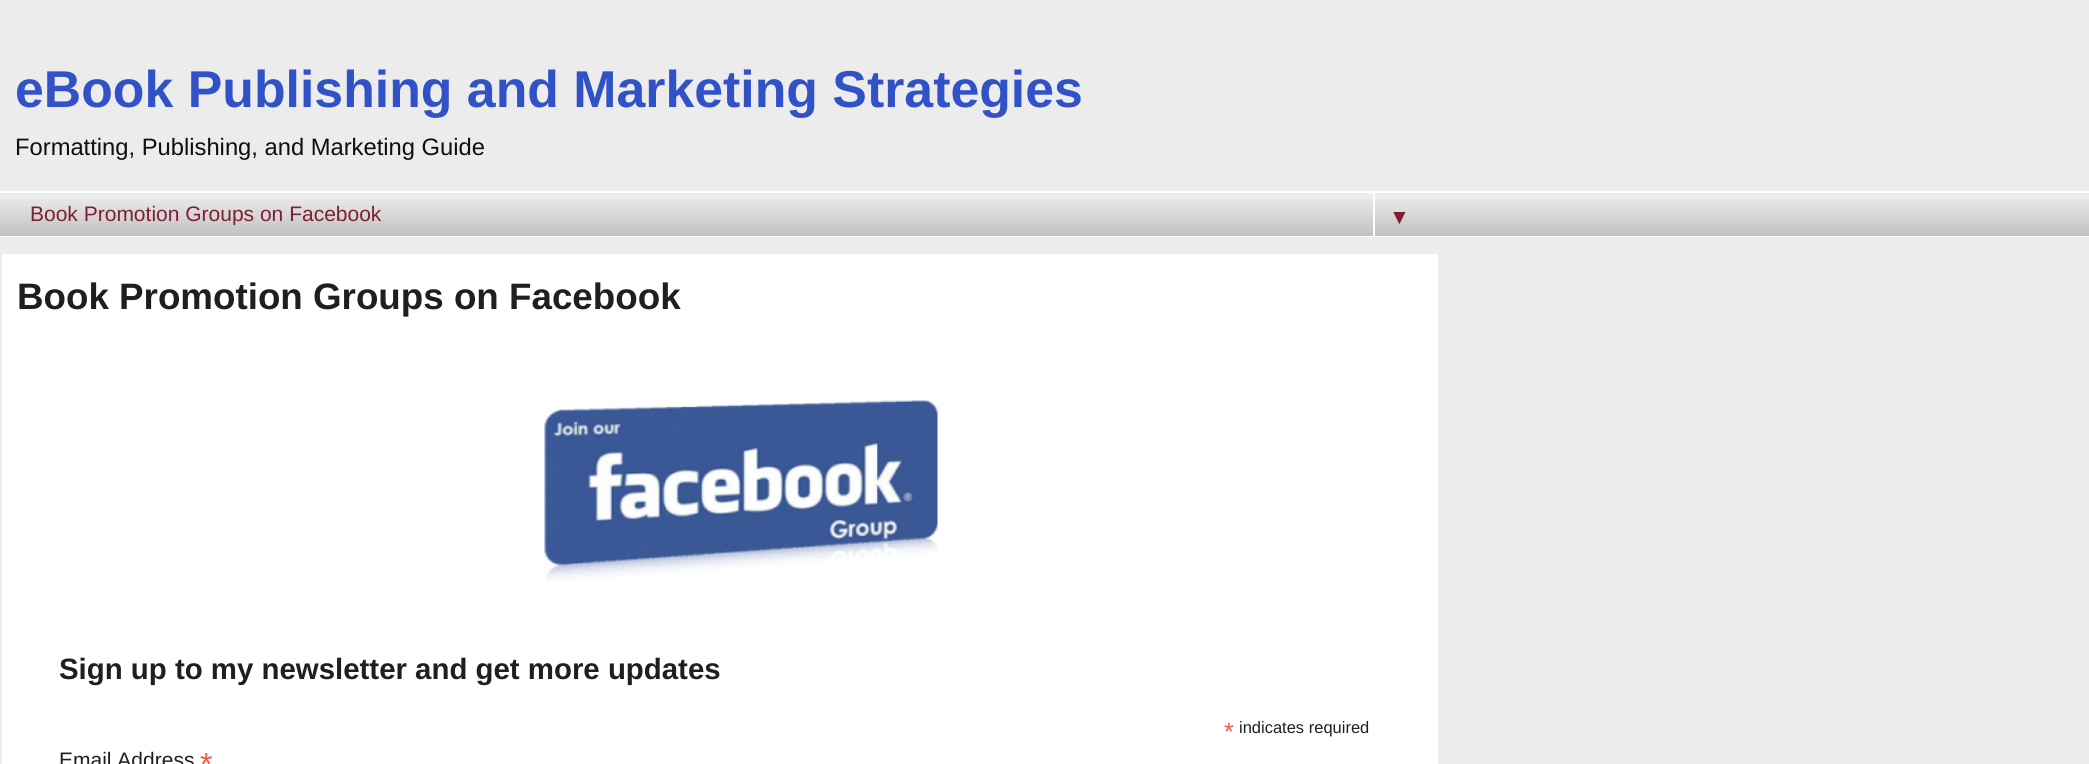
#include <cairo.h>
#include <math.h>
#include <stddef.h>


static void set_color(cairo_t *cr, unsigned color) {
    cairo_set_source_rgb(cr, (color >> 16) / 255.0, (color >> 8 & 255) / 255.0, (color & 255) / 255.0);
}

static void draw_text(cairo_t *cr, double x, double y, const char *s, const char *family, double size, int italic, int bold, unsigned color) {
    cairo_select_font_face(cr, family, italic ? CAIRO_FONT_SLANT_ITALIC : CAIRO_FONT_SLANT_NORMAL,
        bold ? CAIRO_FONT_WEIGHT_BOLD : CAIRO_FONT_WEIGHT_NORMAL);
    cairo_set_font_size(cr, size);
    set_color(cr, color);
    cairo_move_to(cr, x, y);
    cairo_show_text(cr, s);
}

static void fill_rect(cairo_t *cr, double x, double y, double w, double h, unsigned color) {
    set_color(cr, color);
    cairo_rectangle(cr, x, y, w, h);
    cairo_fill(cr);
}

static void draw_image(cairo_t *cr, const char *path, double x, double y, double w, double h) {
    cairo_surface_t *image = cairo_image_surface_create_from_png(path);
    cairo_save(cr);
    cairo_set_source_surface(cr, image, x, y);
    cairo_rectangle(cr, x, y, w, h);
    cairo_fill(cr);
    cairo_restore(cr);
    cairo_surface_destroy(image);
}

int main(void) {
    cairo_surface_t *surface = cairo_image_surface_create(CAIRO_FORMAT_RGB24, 2089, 764);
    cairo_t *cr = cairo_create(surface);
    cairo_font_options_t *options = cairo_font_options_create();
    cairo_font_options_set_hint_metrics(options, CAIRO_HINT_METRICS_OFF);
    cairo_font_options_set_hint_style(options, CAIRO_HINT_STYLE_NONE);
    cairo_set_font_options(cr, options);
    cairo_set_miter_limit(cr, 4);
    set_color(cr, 0xECECEC);
    cairo_paint(cr);
    draw_text(cr, 15, 107, "eBook Publishing and Marketing Strategies", "Liberation Sans", 51.8, 0, 1, 0x3151C6);
    draw_text(cr, 15, 155, "Formatting, Publishing, and Marketing Guide", "Liberation Sans", 23.75, 0, 0, 0x0F0F0F);
    draw_image(cr, "assets/img1.png", 0, 199, 2089, 37);
    fill_rect(cr, 0, 191, 2089, 2, 0xFFFFFF);
    cairo_save(cr);
    cairo_rectangle(cr, 30, 201, 1380, 24);
    cairo_clip(cr);
    draw_text(cr, 30, 221, "Book Promotion Groups on Facebook", "Liberation Sans", 21, 0, 0, 0x7F1F34);
    cairo_restore(cr);
    fill_rect(cr, 1373, 191, 2, 46, 0xFFFFFF);
    draw_text(cr, 1389, 224, "▼", "Liberation Sans", 21, 0, 0, 0x7F1F34);
    fill_rect(cr, 0, 236, 2089, 1, 0xFFFFFF);
    fill_rect(cr, 2, 254, 1436, 510, 0xFFFFFF);
    draw_text(cr, 17, 309, "Book Promotion Groups on Facebook", "Liberation Sans", 36.75, 0, 1, 0x1F1F1F);
    draw_image(cr, "assets/img2.png", 544, 400, 394, 182);
    draw_text(cr, 59, 679, "Sign up to my newsletter and get more updates", "Liberation Sans", 29.4, 0, 1, 0x1F1F1F);
    draw_text(cr, 1224, 740, "*", "Liberation Sans", 25, 0, 0, 0xE85C41);
    draw_text(cr, 1239, 733, "indicates required", "Liberation Sans", 16.5, 0, 0, 0x1F1F1F);
    draw_text(cr, 59, 767, "Email Address", "Liberation Sans", 21, 0, 0, 0x1F1F1F);
    draw_text(cr, 200, 775, "*", "Liberation Sans", 32, 0, 0, 0xE85C41);
    cairo_surface_write_to_png(surface, "output.png");
    cairo_font_options_destroy(options);
    cairo_destroy(cr);
    cairo_surface_destroy(surface);
    return 0;
}
